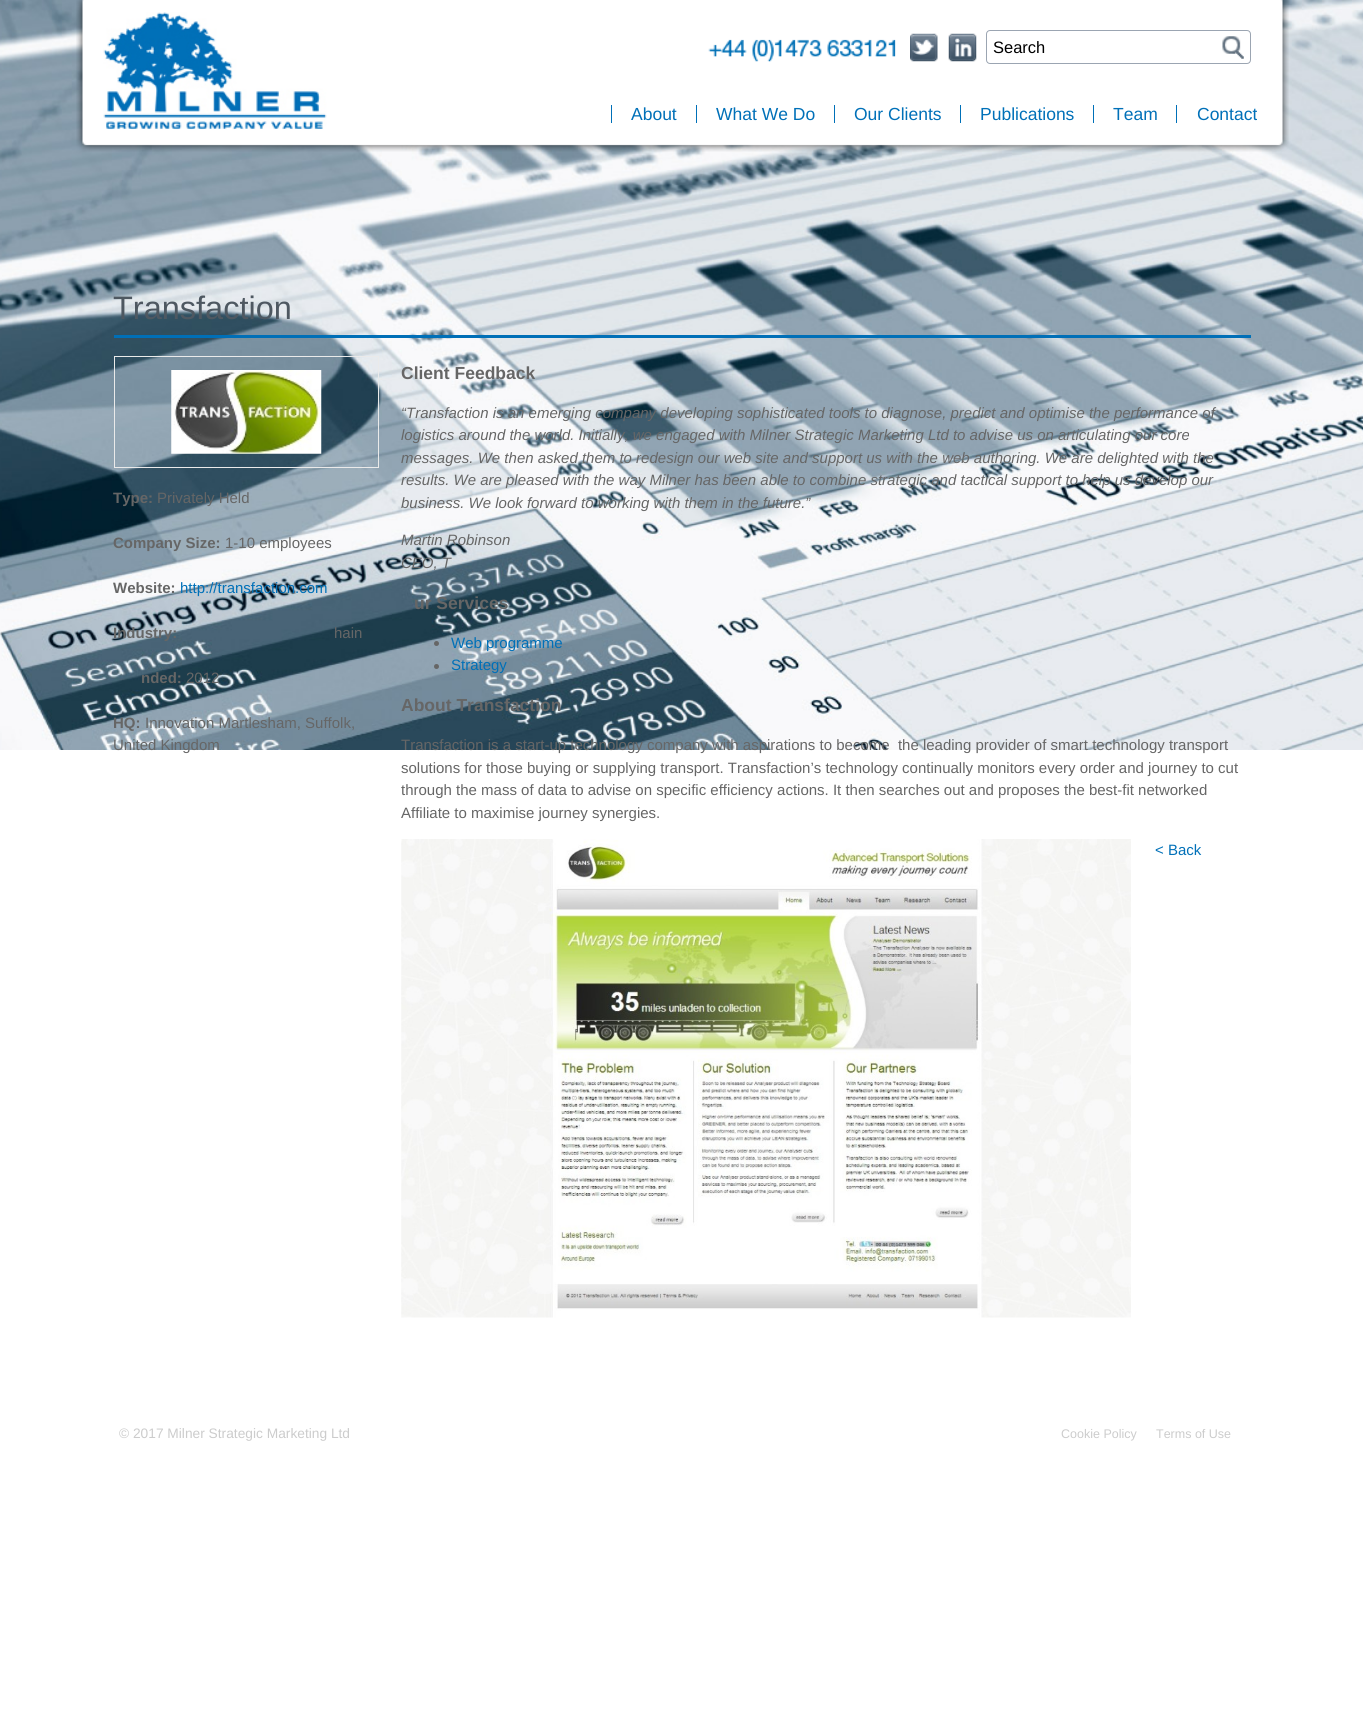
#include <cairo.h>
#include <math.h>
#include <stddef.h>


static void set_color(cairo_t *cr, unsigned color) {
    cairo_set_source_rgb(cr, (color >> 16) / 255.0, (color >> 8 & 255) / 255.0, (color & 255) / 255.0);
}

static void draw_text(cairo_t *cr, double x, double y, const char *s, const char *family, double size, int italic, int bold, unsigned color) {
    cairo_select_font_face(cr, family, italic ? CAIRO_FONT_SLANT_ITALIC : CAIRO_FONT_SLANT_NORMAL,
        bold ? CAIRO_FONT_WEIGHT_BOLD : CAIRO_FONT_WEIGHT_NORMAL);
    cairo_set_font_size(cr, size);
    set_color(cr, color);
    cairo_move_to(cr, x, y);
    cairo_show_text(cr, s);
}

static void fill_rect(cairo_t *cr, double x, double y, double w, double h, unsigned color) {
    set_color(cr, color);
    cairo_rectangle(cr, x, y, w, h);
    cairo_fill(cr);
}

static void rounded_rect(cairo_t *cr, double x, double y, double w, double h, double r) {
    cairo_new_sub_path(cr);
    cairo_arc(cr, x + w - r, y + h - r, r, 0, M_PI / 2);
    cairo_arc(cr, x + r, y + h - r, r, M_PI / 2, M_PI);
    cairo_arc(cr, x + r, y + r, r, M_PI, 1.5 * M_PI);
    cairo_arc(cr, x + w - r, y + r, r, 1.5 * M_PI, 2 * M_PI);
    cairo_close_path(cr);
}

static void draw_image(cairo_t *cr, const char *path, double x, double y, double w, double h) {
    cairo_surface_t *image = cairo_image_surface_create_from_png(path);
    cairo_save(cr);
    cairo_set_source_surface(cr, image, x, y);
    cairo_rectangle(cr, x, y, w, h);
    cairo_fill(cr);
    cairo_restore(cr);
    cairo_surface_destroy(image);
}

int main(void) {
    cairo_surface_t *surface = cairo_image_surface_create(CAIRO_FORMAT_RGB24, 1363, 1719);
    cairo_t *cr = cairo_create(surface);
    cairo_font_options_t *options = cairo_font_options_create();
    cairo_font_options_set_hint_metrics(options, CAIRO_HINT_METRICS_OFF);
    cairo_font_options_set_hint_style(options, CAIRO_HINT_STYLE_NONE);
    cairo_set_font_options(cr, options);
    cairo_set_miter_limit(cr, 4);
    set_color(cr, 0xFFFFFF);
    cairo_paint(cr);
    draw_image(cr, "assets/img1.png", 0, 0, 1363, 750);
    draw_image(cr, "assets/img2.png", 76, 0, 1213, 152);
    draw_image(cr, "assets/img3.png", 103, 12, 224, 118);
    draw_image(cr, "assets/img4.png", 708, 39, 188, 23);
    draw_image(cr, "assets/img5.png", 910, 33, 28, 29);
    draw_image(cr, "assets/img6.png", 948, 33, 29, 29);
    draw_image(cr, "assets/img7.png", 1222, 36, 22, 23);
    rounded_rect(cr, 986.5, 30.5, 264, 33, 3.5);
    set_color(cr, 0x9BA5B2);
    cairo_set_line_width(cr, 1);
    cairo_stroke(cr);
    draw_text(cr, 993, 53, "Search", "Liberation Sans", 16.5, 0, 0, 0x000000);
    fill_rect(cr, 611, 105, 1, 18, 0x0070B8);
    draw_text(cr, 631, 120, "About", "Liberation Sans", 17.5, 0, 0, 0x0070B8);
    fill_rect(cr, 696, 105, 1, 18, 0x0070B8);
    draw_text(cr, 716, 120, "What We Do", "Liberation Sans", 17.5, 0, 0, 0x0070B8);
    fill_rect(cr, 834, 105, 1, 18, 0x0070B8);
    draw_text(cr, 854, 120, "Our Clients", "Liberation Sans", 17.5, 0, 0, 0x0070B8);
    fill_rect(cr, 960, 105, 1, 18, 0x0070B8);
    draw_text(cr, 980, 120, "Publications", "Liberation Sans", 17.5, 0, 0, 0x0070B8);
    fill_rect(cr, 1093, 105, 1, 18, 0x0070B8);
    draw_text(cr, 1113, 120, "Team", "Liberation Sans", 17.5, 0, 0, 0x0070B8);
    fill_rect(cr, 1176, 105, 1, 18, 0x0070B8);
    draw_text(cr, 1197, 120, "Contact", "Liberation Sans", 17.5, 0, 0, 0x0070B8);
    fill_rect(cr, 114, 335, 1137, 3, 0x006FB7);
    draw_text(cr, 113, 319, "Transfaction", "Liberation Sans", 32.5, 0, 0, 0x4E5861);
    cairo_rectangle(cr, 114.5, 356.5, 264, 111);
    set_color(cr, 0xEAEAEA);
    cairo_stroke(cr);
    draw_image(cr, "assets/img8.png", 171, 370, 151, 84);
    draw_text(cr, 113, 503, "Type:", "Liberation Sans", 15, 0, 1, 0x666666);
    draw_text(cr, 157, 503, "Privately Held", "Liberation Sans", 15, 0, 0, 0x666666);
    draw_text(cr, 113, 548, "Company Size:", "Liberation Sans", 15, 0, 1, 0x666666);
    draw_text(cr, 225, 548, "1-10 employees", "Liberation Sans", 15, 0, 0, 0x666666);
    draw_text(cr, 113, 593, "Website:", "Liberation Sans", 15, 0, 1, 0x666666);
    draw_text(cr, 180, 593, "http://transfaction.com", "Liberation Sans", 15, 0, 0, 0x0070B8);
    draw_text(cr, 113, 638, "Industry:", "Liberation Sans", 15, 0, 1, 0x666666);
    draw_text(cr, 334, 638, "hain", "Liberation Sans", 15, 0, 0, 0x666666);
    draw_text(cr, 141, 683, "nded:", "Liberation Sans", 15, 0, 1, 0x666666);
    draw_text(cr, 186, 683, "2012", "Liberation Sans", 15, 0, 0, 0x666666);
    draw_text(cr, 113, 728, "HQ:", "Liberation Sans", 15, 0, 1, 0x666666);
    draw_text(cr, 145, 728, "Innovation Martlesham, Suffolk,", "Liberation Sans", 15, 0, 0, 0x666666);
    draw_text(cr, 113, 750, "United Kingdom", "Liberation Sans", 15, 0, 0, 0x666666);
    draw_text(cr, 401, 379, "Client Feedback", "Liberation Sans", 17.5, 0, 1, 0x666666);
    draw_text(cr, 401, 418, "“Transfaction is an emerging company developing sophisticated tools to diagnose, predict and optimise the performance of", "Liberation Sans", 15, 1, 0, 0x666666);
    draw_text(cr, 401, 440, "logistics around the world. Initially, we engaged with Milner Strategic Marketing Ltd to advise us on articulating our core", "Liberation Sans", 15, 1, 0, 0x666666);
    draw_text(cr, 401, 463, "messages. We then asked them to redesign our web site and support us with the web authoring. We are delighted with the", "Liberation Sans", 15, 1, 0, 0x666666);
    draw_text(cr, 401, 485, "results. We are pleased with the way Milner has been able to combine strategic and tactical support to help us develop our", "Liberation Sans", 15, 1, 0, 0x666666);
    draw_text(cr, 401, 508, "business. We look forward to working with them in the future.”", "Liberation Sans", 15, 1, 0, 0x666666);
    draw_text(cr, 401, 545, "Martin Robinson", "Liberation Sans", 15, 1, 0, 0x666666);
    draw_text(cr, 401, 568, "CEO, T", "Liberation Sans", 15, 1, 0, 0x666666);
    draw_text(cr, 414, 609, "ur Services", "Liberation Sans", 17.5, 0, 1, 0x666666);
    cairo_new_path(cr);
    cairo_arc(cr, 436.5, 643.5, 2.5, 0, 2 * M_PI);
    cairo_fill(cr);
    draw_text(cr, 451, 648, "Web programme", "Liberation Sans", 15, 0, 0, 0x0070B8);
    set_color(cr, 0x666666);
    cairo_new_path(cr);
    cairo_arc(cr, 436.5, 666.5, 2.5, 0, 2 * M_PI);
    cairo_fill(cr);
    draw_text(cr, 451, 670, "Strategy", "Liberation Sans", 15, 0, 0, 0x0070B8);
    draw_text(cr, 401, 711, "About Transfaction", "Liberation Sans", 17.5, 0, 1, 0x666666);
    draw_text(cr, 401, 750, "Transfaction is a start-up technology company with aspirations to become  the leading provider of smart technology transport", "Liberation Sans", 15, 0, 0, 0x666666);
    draw_text(cr, 401, 773, "solutions for those buying or supplying transport. Transfaction’s technology continually monitors every order and journey to cut", "Liberation Sans", 15, 0, 0, 0x666666);
    draw_text(cr, 401, 795, "through the mass of data to advise on specific efficiency actions. It then searches out and proposes the best-fit networked", "Liberation Sans", 15, 0, 0, 0x666666);
    draw_text(cr, 401, 818, "Affiliate to maximise journey synergies.", "Liberation Sans", 15, 0, 0, 0x666666);
    draw_image(cr, "assets/img9.png", 401, 839, 730, 479);
    draw_text(cr, 1155, 855, "< Back", "Liberation Sans", 15, 0, 0, 0x0070B8);
    draw_text(cr, 119, 1438, "© 2017 Milner Strategic Marketing Ltd", "Liberation Sans", 13.75, 0, 0, 0xCCCCCC);
    draw_text(cr, 1061, 1438, "Cookie Policy", "Liberation Sans", 12.5, 0, 0, 0xCCCCCC);
    draw_text(cr, 1156, 1438, "Terms of Use", "Liberation Sans", 12.5, 0, 0, 0xCCCCCC);
    cairo_surface_write_to_png(surface, "output.png");
    cairo_font_options_destroy(options);
    cairo_destroy(cr);
    cairo_surface_destroy(surface);
    return 0;
}
